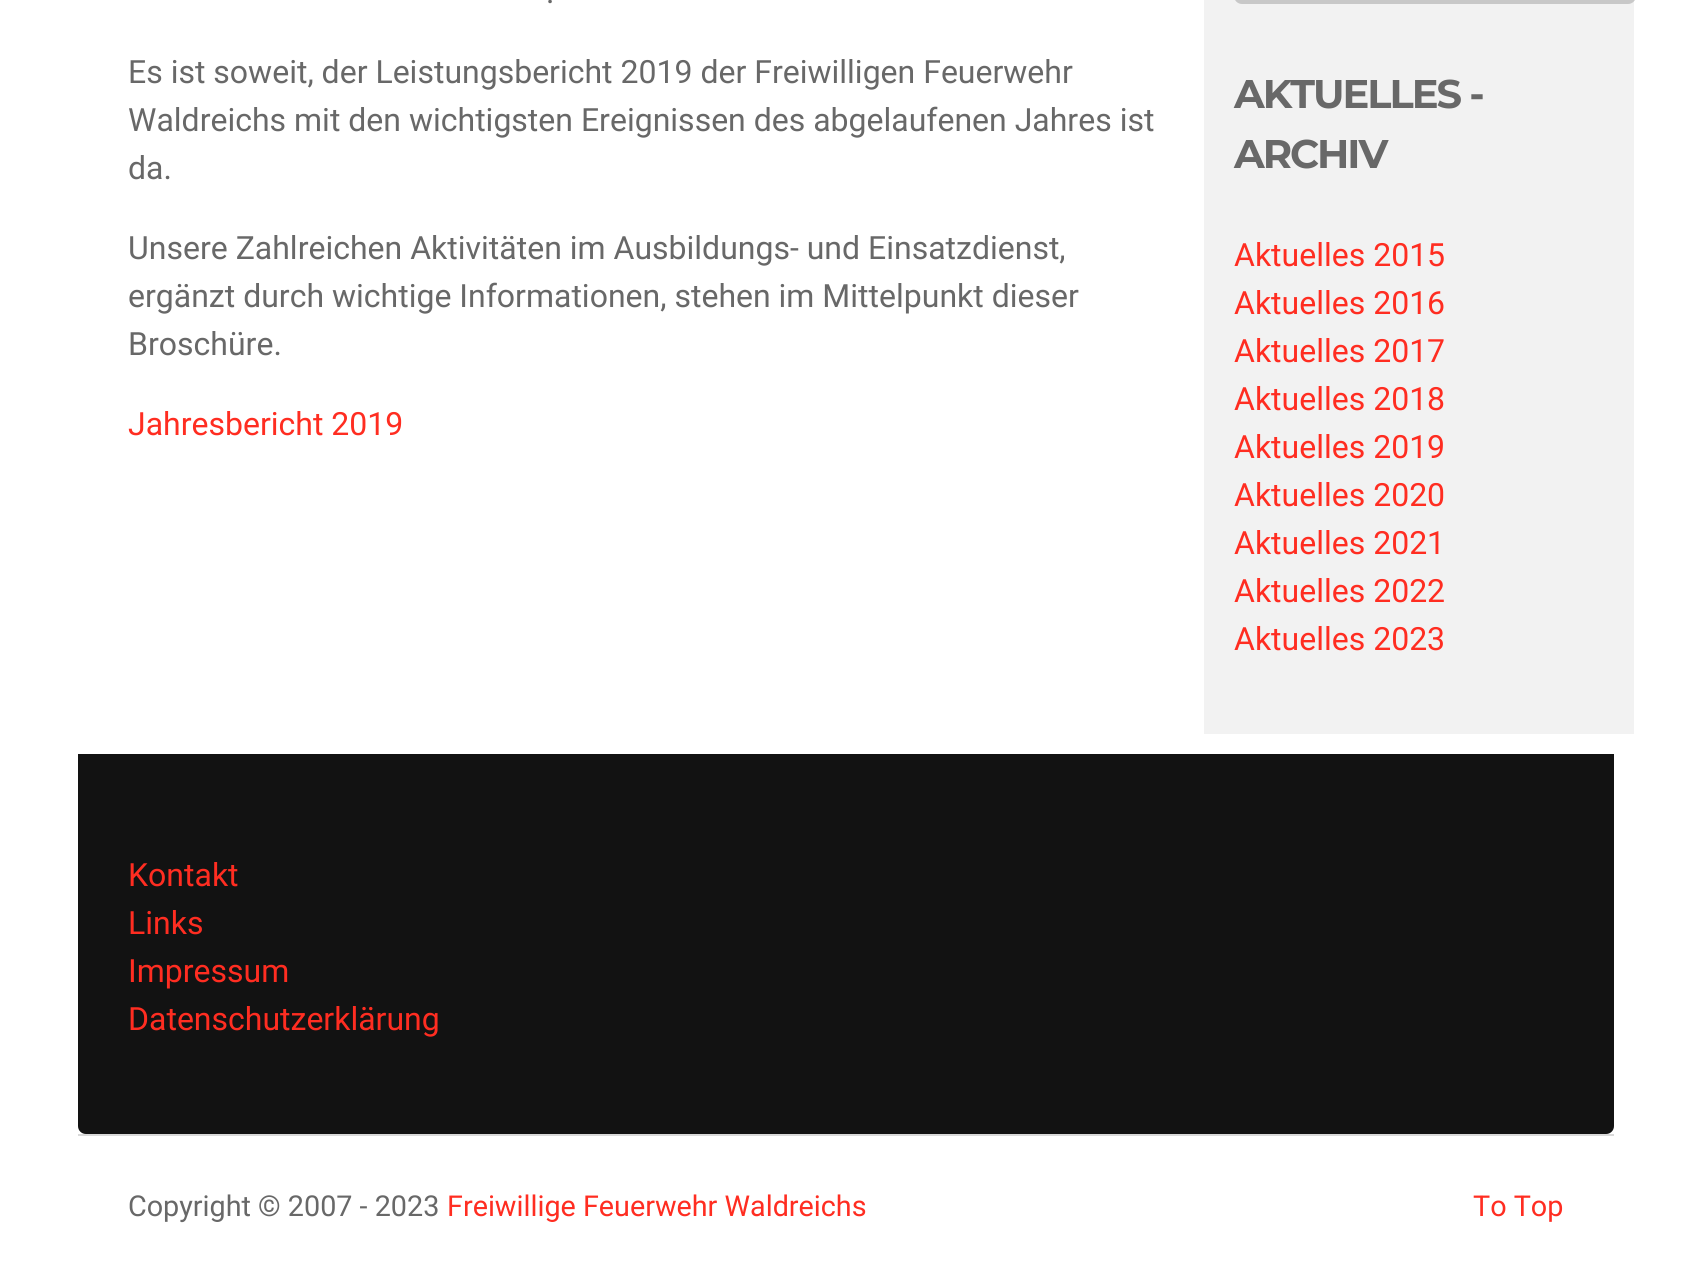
#include <cairo.h>
#include <math.h>
#include <stddef.h>


static void set_color(cairo_t *cr, unsigned color) {
    cairo_set_source_rgb(cr, (color >> 16) / 255.0, (color >> 8 & 255) / 255.0, (color & 255) / 255.0);
}

static void draw_text(cairo_t *cr, double x, double y, const char *s, const char *family, double size, int italic, int bold, unsigned color) {
    cairo_select_font_face(cr, family, italic ? CAIRO_FONT_SLANT_ITALIC : CAIRO_FONT_SLANT_NORMAL,
        bold ? CAIRO_FONT_WEIGHT_BOLD : CAIRO_FONT_WEIGHT_NORMAL);
    cairo_set_font_size(cr, size);
    set_color(cr, color);
    cairo_move_to(cr, x, y);
    cairo_show_text(cr, s);
}

static void draw_spaced(cairo_t *cr, double x, double y, const char *s, double letter, double word) {
    cairo_move_to(cr, x, y);
    while (*s) {
        char ch[5] = {0};
        int n = 0;
        do ch[n++] = *s++; while ((*s & 0xC0) == 0x80);
        cairo_show_text(cr, ch);
        cairo_rel_move_to(cr, letter + word * (*ch == ' '), 0);
    }
}

static void fill_rect(cairo_t *cr, double x, double y, double w, double h, unsigned color) {
    set_color(cr, color);
    cairo_rectangle(cr, x, y, w, h);
    cairo_fill(cr);
}

static void rounded_rect(cairo_t *cr, double x, double y, double w, double h, double r) {
    cairo_new_sub_path(cr);
    cairo_arc(cr, x + w - r, y + h - r, r, 0, M_PI / 2);
    cairo_arc(cr, x + r, y + h - r, r, M_PI / 2, M_PI);
    cairo_arc(cr, x + r, y + r, r, M_PI, 1.5 * M_PI);
    cairo_arc(cr, x + w - r, y + r, r, 1.5 * M_PI, 2 * M_PI);
    cairo_close_path(cr);
}

int main(void) {
    cairo_surface_t *surface = cairo_image_surface_create(CAIRO_FORMAT_RGB24, 1691, 1263);
    cairo_t *cr = cairo_create(surface);
    cairo_font_options_t *options = cairo_font_options_create();
    cairo_font_options_set_hint_metrics(options, CAIRO_HINT_METRICS_OFF);
    cairo_font_options_set_hint_style(options, CAIRO_HINT_STYLE_NONE);
    cairo_set_font_options(cr, options);
    cairo_set_miter_limit(cr, 4);
    set_color(cr, 0xFFFFFF);
    cairo_paint(cr);
    draw_text(cr, 546, 3, ".", "Roboto", 32, 0, 0, 0x686868);
    draw_text(cr, 128, 83, "Es ist soweit, der Leistungsbericht 2019 der Freiwilligen Feuerwehr", "Roboto", 32, 0, 0, 0x686868);
    draw_text(cr, 128, 131, "Waldreichs mit den wichtigsten Ereignissen des abgelaufenen Jahres ist", "Roboto", 32, 0, 0, 0x686868);
    draw_text(cr, 128, 179, "da.", "Roboto", 32, 0, 0, 0x686868);
    draw_text(cr, 128, 259, "Unsere Zahlreichen Aktivitäten im Ausbildungs- und Einsatzdienst,", "Roboto", 32, 0, 0, 0x686868);
    draw_text(cr, 128, 307, "ergänzt durch wichtige Informationen, stehen im Mittelpunkt dieser", "Roboto", 32, 0, 0, 0x686868);
    draw_text(cr, 128, 355, "Broschüre.", "Roboto", 32, 0, 0, 0x686868);
    draw_text(cr, 128, 435, "Jahresbericht 2019", "Roboto", 32, 0, 0, 0xFF2D21);
    fill_rect(cr, 1204, 0, 430, 734, 0xF2F2F2);
    rounded_rect(cr, 1236, -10, 398, 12, 6);
    set_color(cr, 0xC8C8C8);
    cairo_set_line_width(cr, 4);
    cairo_stroke(cr);
    cairo_select_font_face(cr, "Montserrat", CAIRO_FONT_SLANT_NORMAL, CAIRO_FONT_WEIGHT_BOLD);
    cairo_set_font_size(cr, 40);
    set_color(cr, 0x686868);
    draw_spaced(cr, 1234, 108, "AKTUELLES -", -2, 0);
    draw_spaced(cr, 1234, 168, "ARCHIV", -2, 0);
    draw_text(cr, 1234, 266, "Aktuelles 2015", "Roboto", 32, 0, 0, 0xFF2D21);
    draw_text(cr, 1234, 314, "Aktuelles 2016", "Roboto", 32, 0, 0, 0xFF2D21);
    draw_text(cr, 1234, 362, "Aktuelles 2017", "Roboto", 32, 0, 0, 0xFF2D21);
    draw_text(cr, 1234, 410, "Aktuelles 2018", "Roboto", 32, 0, 0, 0xFF2D21);
    draw_text(cr, 1234, 458, "Aktuelles 2019", "Roboto", 32, 0, 0, 0xFF2D21);
    draw_text(cr, 1234, 506, "Aktuelles 2020", "Roboto", 32, 0, 0, 0xFF2D21);
    draw_text(cr, 1234, 554, "Aktuelles 2021", "Roboto", 32, 0, 0, 0xFF2D21);
    draw_text(cr, 1234, 602, "Aktuelles 2022", "Roboto", 32, 0, 0, 0xFF2D21);
    draw_text(cr, 1234, 650, "Aktuelles 2023", "Roboto", 32, 0, 0, 0xFF2D21);
    set_color(cr, 0x121212);
    cairo_new_path(cr);
    cairo_move_to(cr, 78, 754);
    cairo_line_to(cr, 1614, 754);
    cairo_line_to(cr, 1614, 1126);
    cairo_curve_to(cr, 1614, 1130.5, 1610.5, 1134, 1606, 1134);
    cairo_line_to(cr, 86, 1134);
    cairo_curve_to(cr, 81.5, 1134, 78, 1130.5, 78, 1126);
    cairo_close_path(cr);
    cairo_fill(cr);
    draw_text(cr, 128, 886, "Kontakt", "Roboto", 32, 0, 0, 0xFF2D21);
    draw_text(cr, 128, 934, "Links", "Roboto", 32, 0, 0, 0xFF2D21);
    draw_text(cr, 128, 982, "Impressum", "Roboto", 32, 0, 0, 0xFF2D21);
    draw_text(cr, 128, 1030, "Datenschutzerklärung", "Roboto", 32, 0, 0, 0xFF2D21);
    fill_rect(cr, 78, 1134, 1536, 2, 0xD9D9D9);
    draw_text(cr, 128, 1216, "Copyright © 2007 - 2023", "Roboto", 28.75, 0, 0, 0x686868);
    draw_text(cr, 447, 1216, "Freiwillige Feuerwehr Waldreichs", "Roboto", 28.75, 0, 0, 0xFF2D21);
    draw_text(cr, 1473, 1216, "To Top", "Roboto", 28.75, 0, 0, 0xFF2D21);
    cairo_surface_write_to_png(surface, "output.png");
    cairo_font_options_destroy(options);
    cairo_destroy(cr);
    cairo_surface_destroy(surface);
    return 0;
}
